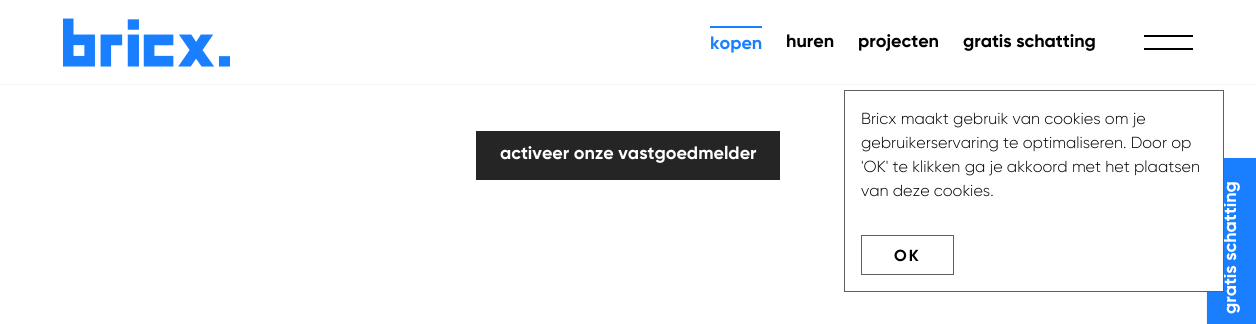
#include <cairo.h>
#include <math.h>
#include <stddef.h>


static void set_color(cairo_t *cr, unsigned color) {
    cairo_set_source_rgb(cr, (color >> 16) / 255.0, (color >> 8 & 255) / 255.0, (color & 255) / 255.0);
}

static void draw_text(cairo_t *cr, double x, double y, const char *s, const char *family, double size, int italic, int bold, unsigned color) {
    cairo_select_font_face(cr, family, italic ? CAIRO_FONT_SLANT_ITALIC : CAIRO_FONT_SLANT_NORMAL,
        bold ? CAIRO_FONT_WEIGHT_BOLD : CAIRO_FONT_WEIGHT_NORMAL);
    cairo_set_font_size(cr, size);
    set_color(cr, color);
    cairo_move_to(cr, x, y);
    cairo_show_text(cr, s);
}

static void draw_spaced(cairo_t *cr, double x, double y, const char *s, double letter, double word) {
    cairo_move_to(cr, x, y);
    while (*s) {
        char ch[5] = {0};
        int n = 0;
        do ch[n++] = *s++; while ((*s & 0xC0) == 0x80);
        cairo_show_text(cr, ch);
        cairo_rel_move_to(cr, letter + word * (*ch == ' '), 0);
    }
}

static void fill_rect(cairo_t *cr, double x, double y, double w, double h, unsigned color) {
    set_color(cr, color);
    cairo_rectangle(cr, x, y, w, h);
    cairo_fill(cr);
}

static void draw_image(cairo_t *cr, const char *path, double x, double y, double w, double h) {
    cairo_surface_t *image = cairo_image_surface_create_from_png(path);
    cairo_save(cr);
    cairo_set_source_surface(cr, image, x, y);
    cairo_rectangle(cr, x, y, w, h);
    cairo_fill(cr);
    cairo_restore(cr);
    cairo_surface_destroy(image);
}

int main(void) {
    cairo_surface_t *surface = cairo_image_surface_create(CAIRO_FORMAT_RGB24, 1256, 324);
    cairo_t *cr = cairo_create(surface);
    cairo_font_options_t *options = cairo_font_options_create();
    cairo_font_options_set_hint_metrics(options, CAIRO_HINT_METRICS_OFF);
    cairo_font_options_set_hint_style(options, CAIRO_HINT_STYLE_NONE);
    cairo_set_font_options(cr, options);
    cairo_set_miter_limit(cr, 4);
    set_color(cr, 0xFFFFFF);
    cairo_paint(cr);
    draw_image(cr, "assets/img1.png", 63, 18, 167, 49);
    fill_rect(cr, 710, 26, 52, 2, 0x1A7FFF);
    draw_text(cr, 710, 49, "kopen", "Gilroy", 18, 0, 1, 0x1A7FFF);
    draw_text(cr, 786, 47, "huren", "Gilroy", 18, 0, 1, 0x000000);
    draw_text(cr, 858, 47, "projecten", "Gilroy", 18, 0, 1, 0x000000);
    draw_text(cr, 963, 47, "gratis schatting", "Gilroy", 18, 0, 1, 0x000000);
    fill_rect(cr, 1144, 35, 49, 2, 0x000000);
    fill_rect(cr, 1144, 48, 49, 2, 0x000000);
    fill_rect(cr, 0, 84, 1256, 1, 0xF6F6F6);
    fill_rect(cr, 476, 131, 304, 49, 0x252525);
    draw_text(cr, 500, 159, "activeer onze vastgoedmelder", "Gilroy", 18, 0, 1, 0xFFFFFF);
    fill_rect(cr, 1207, 158, 49, 166, 0x1A7FFF);
    cairo_save(cr);
    cairo_translate(cr, 1236, 314);
    cairo_rotate(cr, -90 * M_PI / 180);
    draw_text(cr, 0, 0, "gratis schatting", "Gilroy", 18, 0, 1, 0xFFFFFF);
    cairo_restore(cr);
    cairo_new_path(cr);
    cairo_move_to(cr, 1206.5, 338);
    cairo_line_to(cr, 1206.5, 157);
    cairo_line_to(cr, 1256.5, 157);
    cairo_line_to(cr, 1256.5, 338);
    cairo_close_path(cr);
    set_color(cr, 0xF6F6F6);
    cairo_set_line_width(cr, 1);
    cairo_stroke(cr);
    fill_rect(cr, 1206, 156, 17, 135, 0xFFFFFF);
    cairo_rectangle(cr, 844.5, 90.5, 379, 201);
    set_color(cr, 0x5F5F5F);
    cairo_stroke(cr);
    draw_text(cr, 861, 124, "Bricx maakt gebruik van cookies om je", "Gilroy Light", 16, 0, 0, 0x000000);
    draw_text(cr, 861, 148, "gebruikerservaring te optimaliseren. Door op", "Gilroy Light", 16, 0, 0, 0x000000);
    draw_text(cr, 861, 172, "'OK' te klikken ga je akkoord met het plaatsen", "Gilroy Light", 16, 0, 0, 0x000000);
    draw_text(cr, 861, 196, "van deze cookies.", "Gilroy Light", 16, 0, 0, 0x000000);
    cairo_rectangle(cr, 861.5, 235.5, 92, 39);
    set_color(cr, 0x5F5F5F);
    cairo_stroke(cr);
    cairo_select_font_face(cr, "Gilroy", CAIRO_FONT_SLANT_NORMAL, CAIRO_FONT_WEIGHT_BOLD);
    set_color(cr, 0x000000);
    draw_spaced(cr, 894, 261, "OK", 2, 0);
    cairo_surface_write_to_png(surface, "output.png");
    cairo_font_options_destroy(options);
    cairo_destroy(cr);
    cairo_surface_destroy(surface);
    return 0;
}
